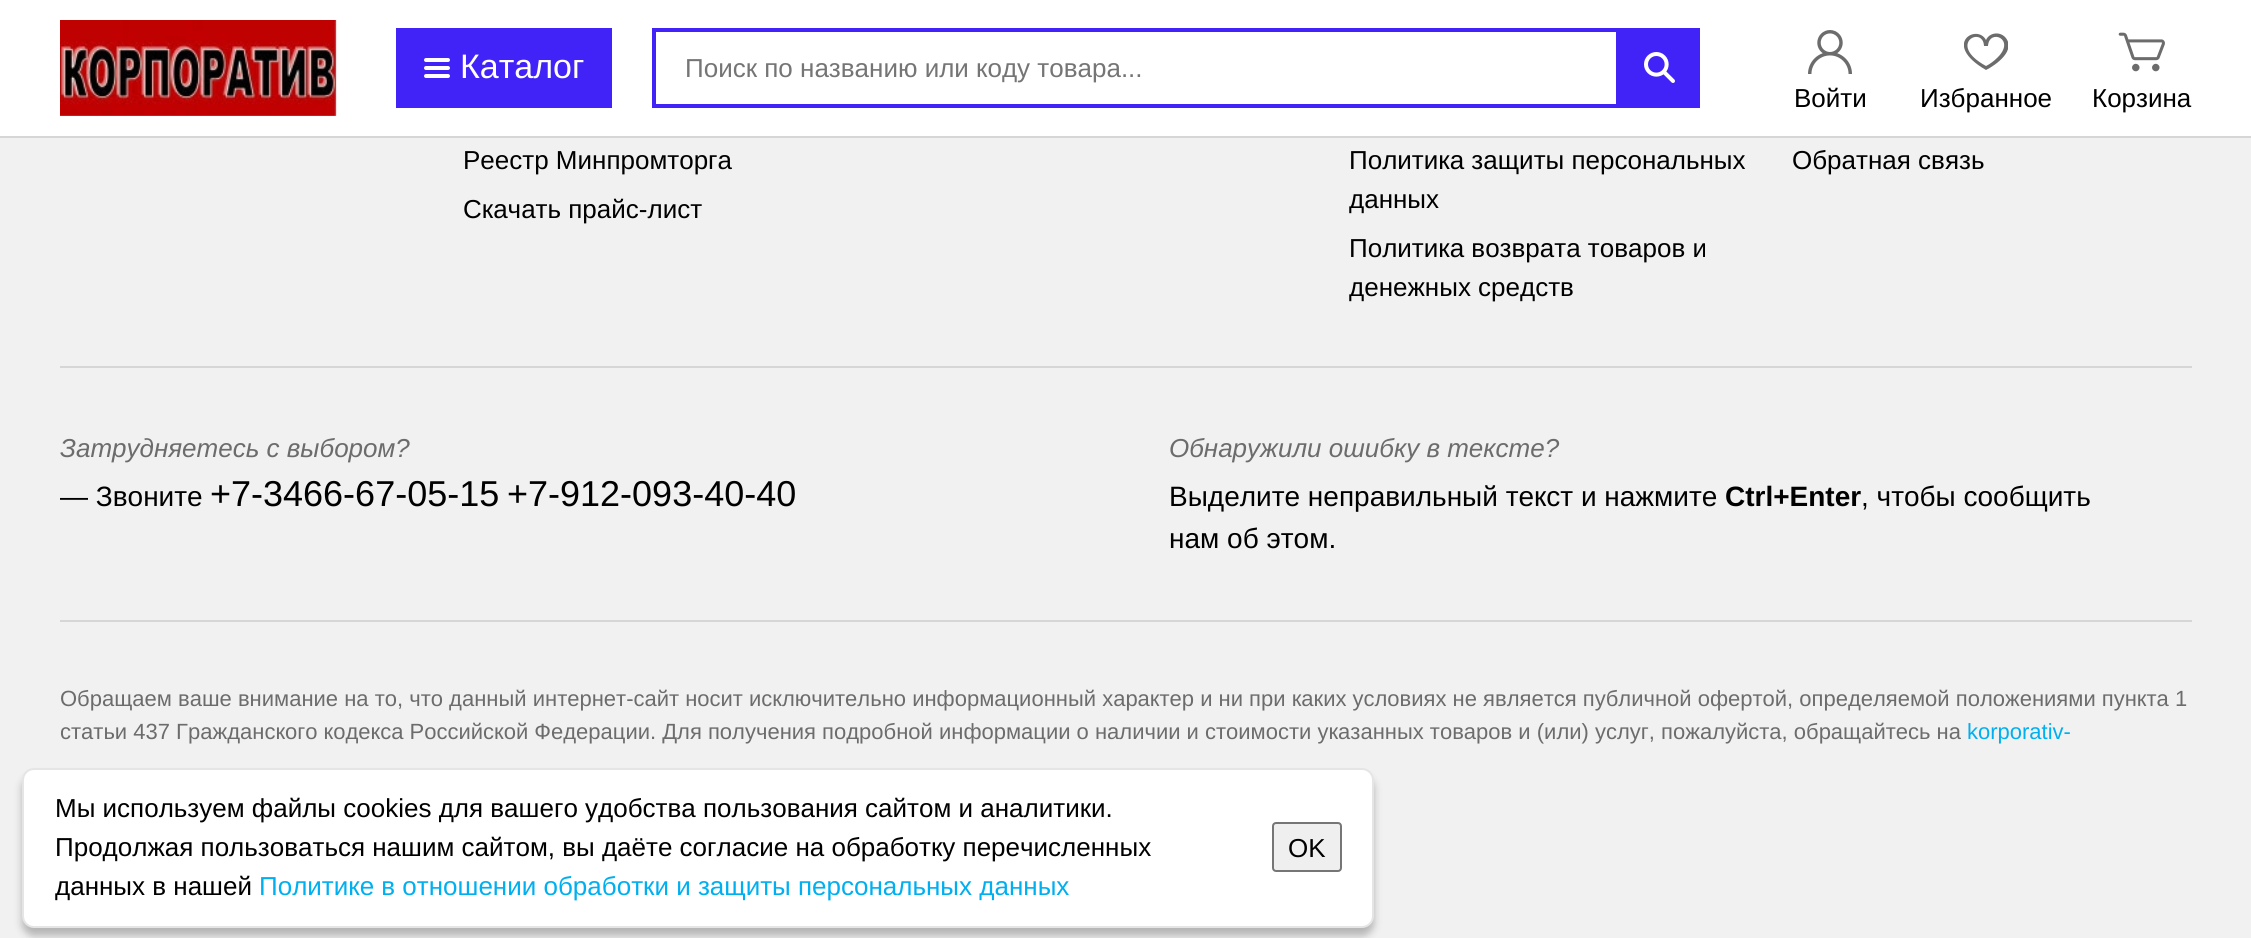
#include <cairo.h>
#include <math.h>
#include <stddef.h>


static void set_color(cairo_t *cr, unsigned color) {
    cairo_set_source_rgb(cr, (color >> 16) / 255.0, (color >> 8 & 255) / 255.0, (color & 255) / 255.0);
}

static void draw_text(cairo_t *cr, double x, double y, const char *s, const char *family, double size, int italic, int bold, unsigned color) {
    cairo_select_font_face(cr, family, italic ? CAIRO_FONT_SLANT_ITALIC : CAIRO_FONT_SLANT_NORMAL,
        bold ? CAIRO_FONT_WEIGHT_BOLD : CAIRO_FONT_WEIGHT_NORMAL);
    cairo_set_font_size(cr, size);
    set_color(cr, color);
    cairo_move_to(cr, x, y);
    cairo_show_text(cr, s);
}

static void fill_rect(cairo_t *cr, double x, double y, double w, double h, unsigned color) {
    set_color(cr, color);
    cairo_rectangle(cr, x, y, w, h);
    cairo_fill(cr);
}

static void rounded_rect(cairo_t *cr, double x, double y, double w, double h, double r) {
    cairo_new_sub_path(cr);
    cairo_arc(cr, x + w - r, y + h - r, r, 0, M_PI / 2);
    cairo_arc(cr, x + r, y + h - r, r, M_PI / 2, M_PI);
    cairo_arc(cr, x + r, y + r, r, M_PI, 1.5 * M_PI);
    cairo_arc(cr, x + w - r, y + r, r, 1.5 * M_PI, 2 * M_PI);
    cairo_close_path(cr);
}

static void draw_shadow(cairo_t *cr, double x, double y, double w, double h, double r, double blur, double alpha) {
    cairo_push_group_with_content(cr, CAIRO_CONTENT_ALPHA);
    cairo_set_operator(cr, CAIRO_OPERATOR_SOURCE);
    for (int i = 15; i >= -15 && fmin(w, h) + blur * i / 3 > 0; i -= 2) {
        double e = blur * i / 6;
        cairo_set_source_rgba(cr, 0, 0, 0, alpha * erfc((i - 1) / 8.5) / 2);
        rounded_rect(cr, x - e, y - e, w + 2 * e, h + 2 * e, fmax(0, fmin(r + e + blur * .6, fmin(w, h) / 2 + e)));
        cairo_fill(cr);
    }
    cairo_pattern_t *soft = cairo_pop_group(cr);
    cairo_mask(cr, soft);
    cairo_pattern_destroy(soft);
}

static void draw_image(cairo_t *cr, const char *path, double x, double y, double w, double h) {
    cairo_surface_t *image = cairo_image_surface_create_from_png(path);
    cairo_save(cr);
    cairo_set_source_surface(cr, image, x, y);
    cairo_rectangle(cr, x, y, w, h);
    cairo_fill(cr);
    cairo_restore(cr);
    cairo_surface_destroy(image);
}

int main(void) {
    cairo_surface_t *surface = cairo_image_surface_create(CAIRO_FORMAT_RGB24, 2251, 938);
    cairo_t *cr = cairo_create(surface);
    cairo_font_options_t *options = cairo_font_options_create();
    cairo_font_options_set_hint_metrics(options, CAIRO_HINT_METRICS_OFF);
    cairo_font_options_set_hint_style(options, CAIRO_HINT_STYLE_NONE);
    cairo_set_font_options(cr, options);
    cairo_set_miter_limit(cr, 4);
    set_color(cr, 0xF1F1F1);
    cairo_paint(cr);
    fill_rect(cr, 0, 0, 2251, 136, 0xFFFFFF);
    fill_rect(cr, 0, 136, 2251, 2, 0xD6D6D6);
    draw_image(cr, "assets/img1.png", 60, 20, 277, 96);
    fill_rect(cr, 396, 28, 216, 80, 0x4123F8);
    set_color(cr, 0xFFFFFF);
    rounded_rect(cr, 424, 66, 26, 4, 2);
    cairo_fill(cr);
    rounded_rect(cr, 424, 58, 26, 4, 2);
    cairo_fill(cr);
    rounded_rect(cr, 424, 74, 26, 4, 2);
    cairo_fill(cr);
    draw_text(cr, 460, 78, "Каталог", "Liberation Sans", 34, 0, 0, 0xFFFFFF);
    cairo_rectangle(cr, 654, 30, 1044, 76);
    set_color(cr, 0x4123F8);
    cairo_set_line_width(cr, 4);
    cairo_stroke(cr);
    draw_text(cr, 685, 77, "Поиск по названию или коду товара...", "Liberation Sans", 26, 0, 0, 0x757575);
    fill_rect(cr, 1616, 32, 80, 72, 0x4123F8);
    draw_image(cr, "assets/img2.png", 1644, 52, 31, 31);
    draw_image(cr, "assets/img3.png", 1808, 30, 44, 44);
    draw_text(cr, 1794, 107, "Войти", "Liberation Sans", 26, 0, 0, 0x000000);
    cairo_save(cr);
    cairo_rectangle(cr, 1964, 30, 44, 44);
    cairo_clip(cr);
    set_color(cr, 0x6C6C6C);
    cairo_new_path(cr);
    cairo_move_to(cr, 2005, 37);
    cairo_curve_to(cr, 1999, 31, 1989, 33, 1986, 40);
    cairo_curve_to(cr, 1977, 23, 1941, 44, 1986, 70);
    cairo_curve_to(cr, 1996, 65, 2017, 50, 2005, 37);
    cairo_close_path(cr);
    cairo_move_to(cr, 1997, 58);
    cairo_curve_to(cr, 1994, 61, 1990, 64, 1986, 66);
    cairo_curve_to(cr, 1946, 44, 1983, 25, 1984, 46);
    cairo_line_to(cr, 1988, 46);
    cairo_curve_to(cr, 1989, 28, 2017, 39, 1997, 58);
    cairo_close_path(cr);
    cairo_fill(cr);
    cairo_restore(cr);
    draw_text(cr, 1920, 107, "Избранное", "Liberation Sans", 26, 0, 0, 0x000000);
    draw_image(cr, "assets/img4.png", 2118, 32, 47, 40);
    draw_text(cr, 2092, 107, "Корзина", "Liberation Sans", 26, 0, 0, 0x000000);
    draw_text(cr, 463, 169, "Реестр Минпромторга", "Liberation Sans", 26, 0, 0, 0x000000);
    draw_text(cr, 463, 218, "Скачать прайс-лист", "Liberation Sans", 26, 0, 0, 0x000000);
    draw_text(cr, 1349, 169, "Политика защиты персональных", "Liberation Sans", 26, 0, 0, 0x000000);
    draw_text(cr, 1349, 208, "данных", "Liberation Sans", 26, 0, 0, 0x000000);
    draw_text(cr, 1349, 257, "Политика возврата товаров и", "Liberation Sans", 26, 0, 0, 0x000000);
    draw_text(cr, 1349, 296, "денежных средств", "Liberation Sans", 26, 0, 0, 0x000000);
    draw_text(cr, 1792, 169, "Обратная связь", "Liberation Sans", 26, 0, 0, 0x000000);
    fill_rect(cr, 60, 366, 2132, 2, 0xD6D6D6);
    draw_text(cr, 60, 457, "Затрудняетесь с выбором?", "Liberation Sans", 26, 1, 0, 0x6C6C6C);
    draw_text(cr, 60, 506, "— Звоните", "Liberation Sans", 28, 0, 0, 0x000000);
    draw_text(cr, 210, 506, "+7-3466-67-05-15", "Liberation Sans", 36, 0, 0, 0x000000);
    draw_text(cr, 507, 506, "+7-912-093-40-40", "Liberation Sans", 36, 0, 0, 0x000000);
    draw_text(cr, 1169, 457, "Обнаружили ошибку в тексте?", "Liberation Sans", 26, 1, 0, 0x6C6C6C);
    draw_text(cr, 1169, 506, "Выделите неправильный текст и нажмите", "Liberation Sans", 28, 0, 0, 0x000000);
    draw_text(cr, 1725, 506, "Ctrl+Enter", "Liberation Sans", 28, 0, 1, 0x000000);
    draw_text(cr, 1861, 506, ", чтобы сообщить", "Liberation Sans", 28, 0, 0, 0x000000);
    draw_text(cr, 1169, 548, "нам об этом.", "Liberation Sans", 28, 0, 0, 0x000000);
    fill_rect(cr, 60, 620, 2132, 2, 0xD6D6D6);
    draw_text(cr, 60, 706, "Обращаем ваше внимание на то, что данный интернет-сайт носит исключительно информационный характер и ни при каких условиях не является публичной офертой, определяемой положениями пункта 1", "Liberation Sans", 22, 0, 0, 0x6C6C6C);
    draw_text(cr, 60, 739, "статьи 437 Гражданского кодекса Российской Федерации. Для получения подробной информации о наличии и стоимости указанных товаров и (или) услуг, пожалуйста, обращайтесь на", "Liberation Sans", 22, 0, 0, 0x6C6C6C);
    draw_text(cr, 1967, 739, "korporativ-", "Liberation Sans", 22, 0, 0, 0x00AFF0);
    cairo_set_source_rgba(cr, 1, 1, 1, 0.9);
    cairo_rectangle(cr, 20, 806, 2, 72);
    cairo_fill(cr);
    cairo_rectangle(cr, 25, 811, 190, 62);
    cairo_set_source_rgba(cr, 0.945, 0.945, 0.945, 0.9);
    cairo_set_line_width(cr, 10);
    cairo_stroke(cr);
    set_color(cr, 0x000000);
    draw_shadow(cr, 22, 776, 1352, 160, 12, 4, 0.25);
    set_color(cr, 0xFFFFFF);
    rounded_rect(cr, 23, 769, 1350, 158, 11);
    cairo_fill_preserve(cr);
    set_color(cr, 0xE5E5E5);
    cairo_set_line_width(cr, 2);
    cairo_stroke(cr);
    draw_text(cr, 55, 817, "Мы используем файлы cookies для вашего удобства пользования сайтом и аналитики.", "Liberation Sans", 26, 0, 0, 0x000000);
    draw_text(cr, 55, 856, "Продолжая пользоваться нашим сайтом, вы даёте согласие на обработку перечисленных", "Liberation Sans", 26, 0, 0, 0x000000);
    draw_text(cr, 55, 895, "данных в нашей", "Liberation Sans", 26, 0, 0, 0x000000);
    draw_text(cr, 259, 895, "Политике в отношении обработки и защиты персональных данных", "Liberation Sans", 26, 0, 0, 0x00AFF0);
    set_color(cr, 0xEFEFEF);
    rounded_rect(cr, 1273, 823, 68, 48, 3);
    cairo_fill_preserve(cr);
    set_color(cr, 0x767676);
    cairo_stroke(cr);
    draw_text(cr, 1288, 857, "OK", "Liberation Sans", 26, 0, 0, 0x000000);
    cairo_surface_write_to_png(surface, "output.png");
    cairo_font_options_destroy(options);
    cairo_destroy(cr);
    cairo_surface_destroy(surface);
    return 0;
}
